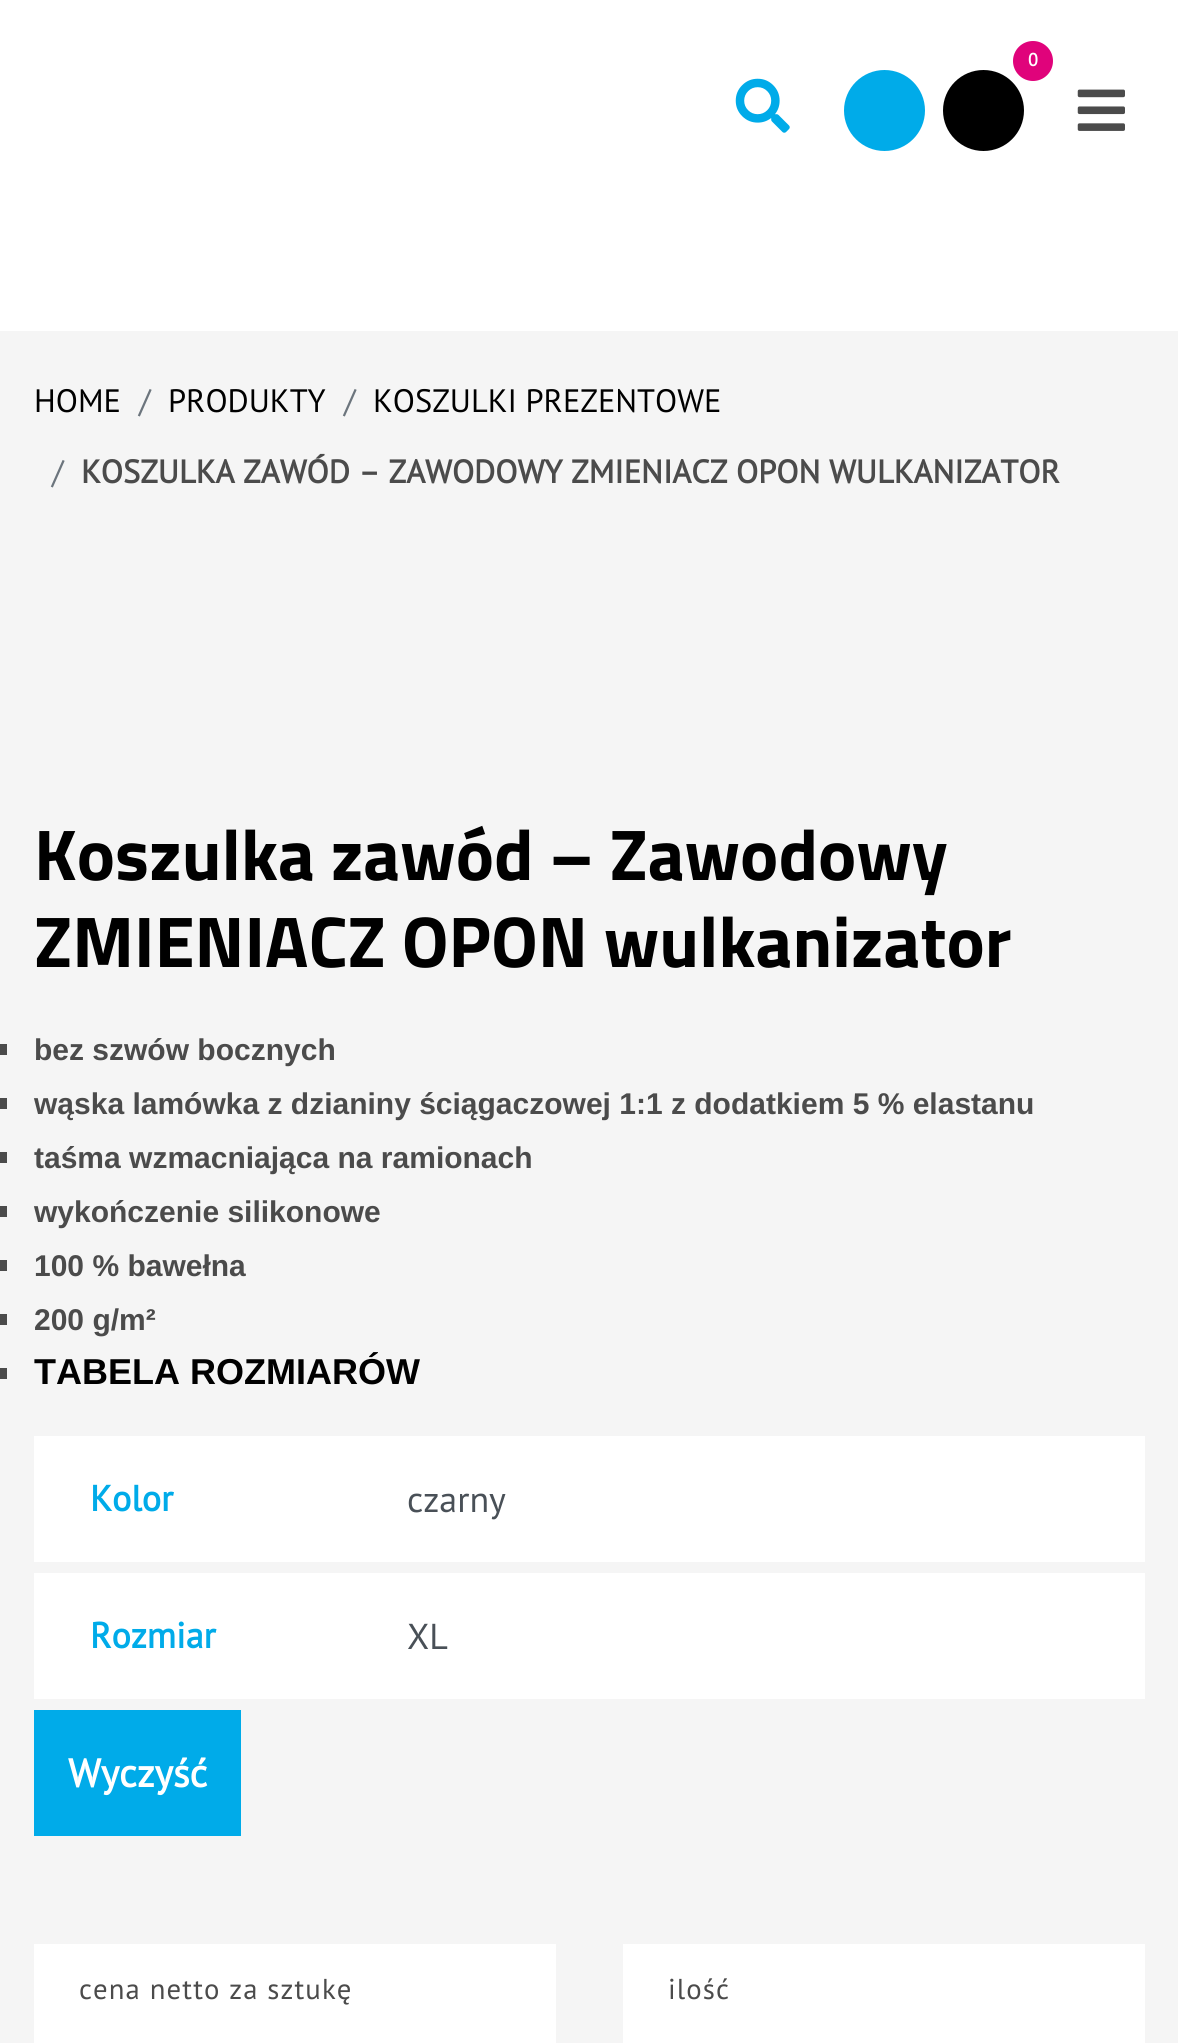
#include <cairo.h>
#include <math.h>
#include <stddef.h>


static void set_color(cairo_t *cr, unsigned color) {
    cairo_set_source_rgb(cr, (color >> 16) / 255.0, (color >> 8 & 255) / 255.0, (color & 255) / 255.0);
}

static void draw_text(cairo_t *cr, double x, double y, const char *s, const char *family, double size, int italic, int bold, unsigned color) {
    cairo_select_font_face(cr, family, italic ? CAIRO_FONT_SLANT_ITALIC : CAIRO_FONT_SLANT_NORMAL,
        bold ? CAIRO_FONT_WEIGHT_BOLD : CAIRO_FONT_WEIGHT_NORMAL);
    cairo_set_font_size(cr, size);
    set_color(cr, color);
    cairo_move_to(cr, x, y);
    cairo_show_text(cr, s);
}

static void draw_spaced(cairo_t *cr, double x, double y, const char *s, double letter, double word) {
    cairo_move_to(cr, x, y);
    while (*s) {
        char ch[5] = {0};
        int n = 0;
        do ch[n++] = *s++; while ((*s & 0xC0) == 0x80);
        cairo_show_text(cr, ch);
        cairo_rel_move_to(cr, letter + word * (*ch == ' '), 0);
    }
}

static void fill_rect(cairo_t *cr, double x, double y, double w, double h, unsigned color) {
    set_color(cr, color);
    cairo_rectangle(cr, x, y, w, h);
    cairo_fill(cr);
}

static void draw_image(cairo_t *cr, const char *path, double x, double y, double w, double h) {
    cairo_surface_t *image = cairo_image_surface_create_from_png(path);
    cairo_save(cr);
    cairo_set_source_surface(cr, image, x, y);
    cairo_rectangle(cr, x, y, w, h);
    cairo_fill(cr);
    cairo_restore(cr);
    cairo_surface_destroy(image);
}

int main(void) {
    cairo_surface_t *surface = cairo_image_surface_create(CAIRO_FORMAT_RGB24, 1178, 2043);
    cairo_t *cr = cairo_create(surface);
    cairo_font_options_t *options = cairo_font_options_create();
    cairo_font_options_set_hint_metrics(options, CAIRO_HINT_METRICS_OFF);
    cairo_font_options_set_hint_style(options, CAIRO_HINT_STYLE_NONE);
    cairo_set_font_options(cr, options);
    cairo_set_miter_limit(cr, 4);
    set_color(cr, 0xFFFFFF);
    cairo_paint(cr);
    set_color(cr, 0x000000);
    cairo_arc(cr, 983.5, 110.5, 40.5, 0, 2 * M_PI);
    cairo_fill(cr);
    set_color(cr, 0xE0037B);
    cairo_arc(cr, 1033, 61, 20, 0, 2 * M_PI);
    cairo_fill(cr);
    draw_text(cr, 1028, 66, "0", "PT Sans", 18, 0, 1, 0xFFFFFF);
    draw_image(cr, "assets/img1.png", 735, 78, 55, 55);
    set_color(cr, 0x00ABE9);
    cairo_arc(cr, 884.5, 110.5, 40.5, 0, 2 * M_PI);
    cairo_fill(cr);
    draw_image(cr, "assets/img2.png", 1077, 89, 48, 42);
    fill_rect(cr, 0, 331, 1178, 1712, 0xF5F5F5);
    draw_text(cr, 34, 412, "HOME", "PT Sans", 32.4, 0, 0, 0x000000);
    draw_text(cr, 139, 412, "/", "PT Sans", 32.4, 0, 0, 0x6C757D);
    draw_text(cr, 168, 412, "PRODUKTY", "PT Sans", 32.4, 0, 0, 0x000000);
    draw_text(cr, 344, 412, "/", "PT Sans", 32.4, 0, 0, 0x6C757D);
    draw_text(cr, 373, 412, "KOSZULKI PREZENTOWE", "PT Sans", 32.4, 0, 0, 0x000000);
    draw_text(cr, 52, 483, "/", "PT Sans", 32.4, 0, 0, 0x6C757D);
    draw_text(cr, 81, 483, "KOSZULKA ZAWÓD – ZAWODOWY ZMIENIACZ OPON WULKANIZATOR", "PT Sans", 32.4, 0, 1, 0x4B4B4B);
    draw_text(cr, 34, 880, "Koszulka zawód – Zawodowy", "Titillium Web", 72, 0, 1, 0x000000);
    draw_text(cr, 34, 967, "ZMIENIACZ OPON wulkanizator", "Titillium Web", 72, 0, 1, 0x000000);
    fill_rect(cr, 0, 1044, 7, 11, 0x4B4B4B);
    draw_text(cr, 34, 1060, "bez szwów bocznych", "Liberation Sans", 30, 0, 1, 0x4B4B4B);
    fill_rect(cr, 0, 1098, 7, 11, 0x4B4B4B);
    draw_text(cr, 34, 1114, "wąska lamówka z dzianiny ściągaczowej 1:1 z dodatkiem 5 % elastanu", "Liberation Sans", 30, 0, 1, 0x4B4B4B);
    fill_rect(cr, 0, 1152, 7, 11, 0x4B4B4B);
    draw_text(cr, 34, 1168, "taśma wzmacniająca na ramionach", "Liberation Sans", 30, 0, 1, 0x4B4B4B);
    fill_rect(cr, 0, 1206, 7, 11, 0x4B4B4B);
    draw_text(cr, 34, 1222, "wykończenie silikonowe", "Liberation Sans", 30, 0, 1, 0x4B4B4B);
    fill_rect(cr, 0, 1260, 7, 11, 0x4B4B4B);
    draw_text(cr, 34, 1276, "100 % bawełna", "Liberation Sans", 30, 0, 1, 0x4B4B4B);
    fill_rect(cr, 0, 1314, 7, 11, 0x4B4B4B);
    draw_text(cr, 34, 1330, "200 g/m²", "Liberation Sans", 30, 0, 1, 0x4B4B4B);
    fill_rect(cr, 0, 1368, 7, 11, 0x4B4B4B);
    draw_text(cr, 34, 1384, "TABELA ROZMIARÓW", "Liberation Sans", 36, 0, 1, 0x000000);
    fill_rect(cr, 34, 1436, 1111, 126, 0xFFFFFF);
    draw_text(cr, 90, 1511, "Kolor", "PT Sans", 36, 0, 1, 0x00ABE9);
    draw_text(cr, 407, 1512, "czarny", "PT Sans", 36, 0, 0, 0x495057);
    fill_rect(cr, 34, 1573, 1111, 126, 0xFFFFFF);
    draw_text(cr, 90, 1648, "Rozmiar", "PT Sans", 36, 0, 1, 0x00ABE9);
    draw_text(cr, 407, 1649, "XL", "PT Sans", 36, 0, 0, 0x495057);
    fill_rect(cr, 34, 1710, 207, 126, 0x00ABE9);
    draw_text(cr, 68, 1787, "Wyczyść", "PT Sans", 39.5, 0, 1, 0xFFFFFF);
    fill_rect(cr, 34, 1944, 522, 99, 0xFFFFFF);
    cairo_select_font_face(cr, "PT Sans", CAIRO_FONT_SLANT_NORMAL, CAIRO_FONT_WEIGHT_NORMAL);
    cairo_set_font_size(cr, 28.75);
    set_color(cr, 0x4B4B4B);
    draw_spaced(cr, 79, 1999, "cena netto za sztukę", 1.1, 0);
    fill_rect(cr, 623, 1944, 522, 99, 0xFFFFFF);
    set_color(cr, 0x4B4B4B);
    draw_spaced(cr, 668, 1999, "ilość", 1.1, 0);
    cairo_surface_write_to_png(surface, "output.png");
    cairo_font_options_destroy(options);
    cairo_destroy(cr);
    cairo_surface_destroy(surface);
    return 0;
}
